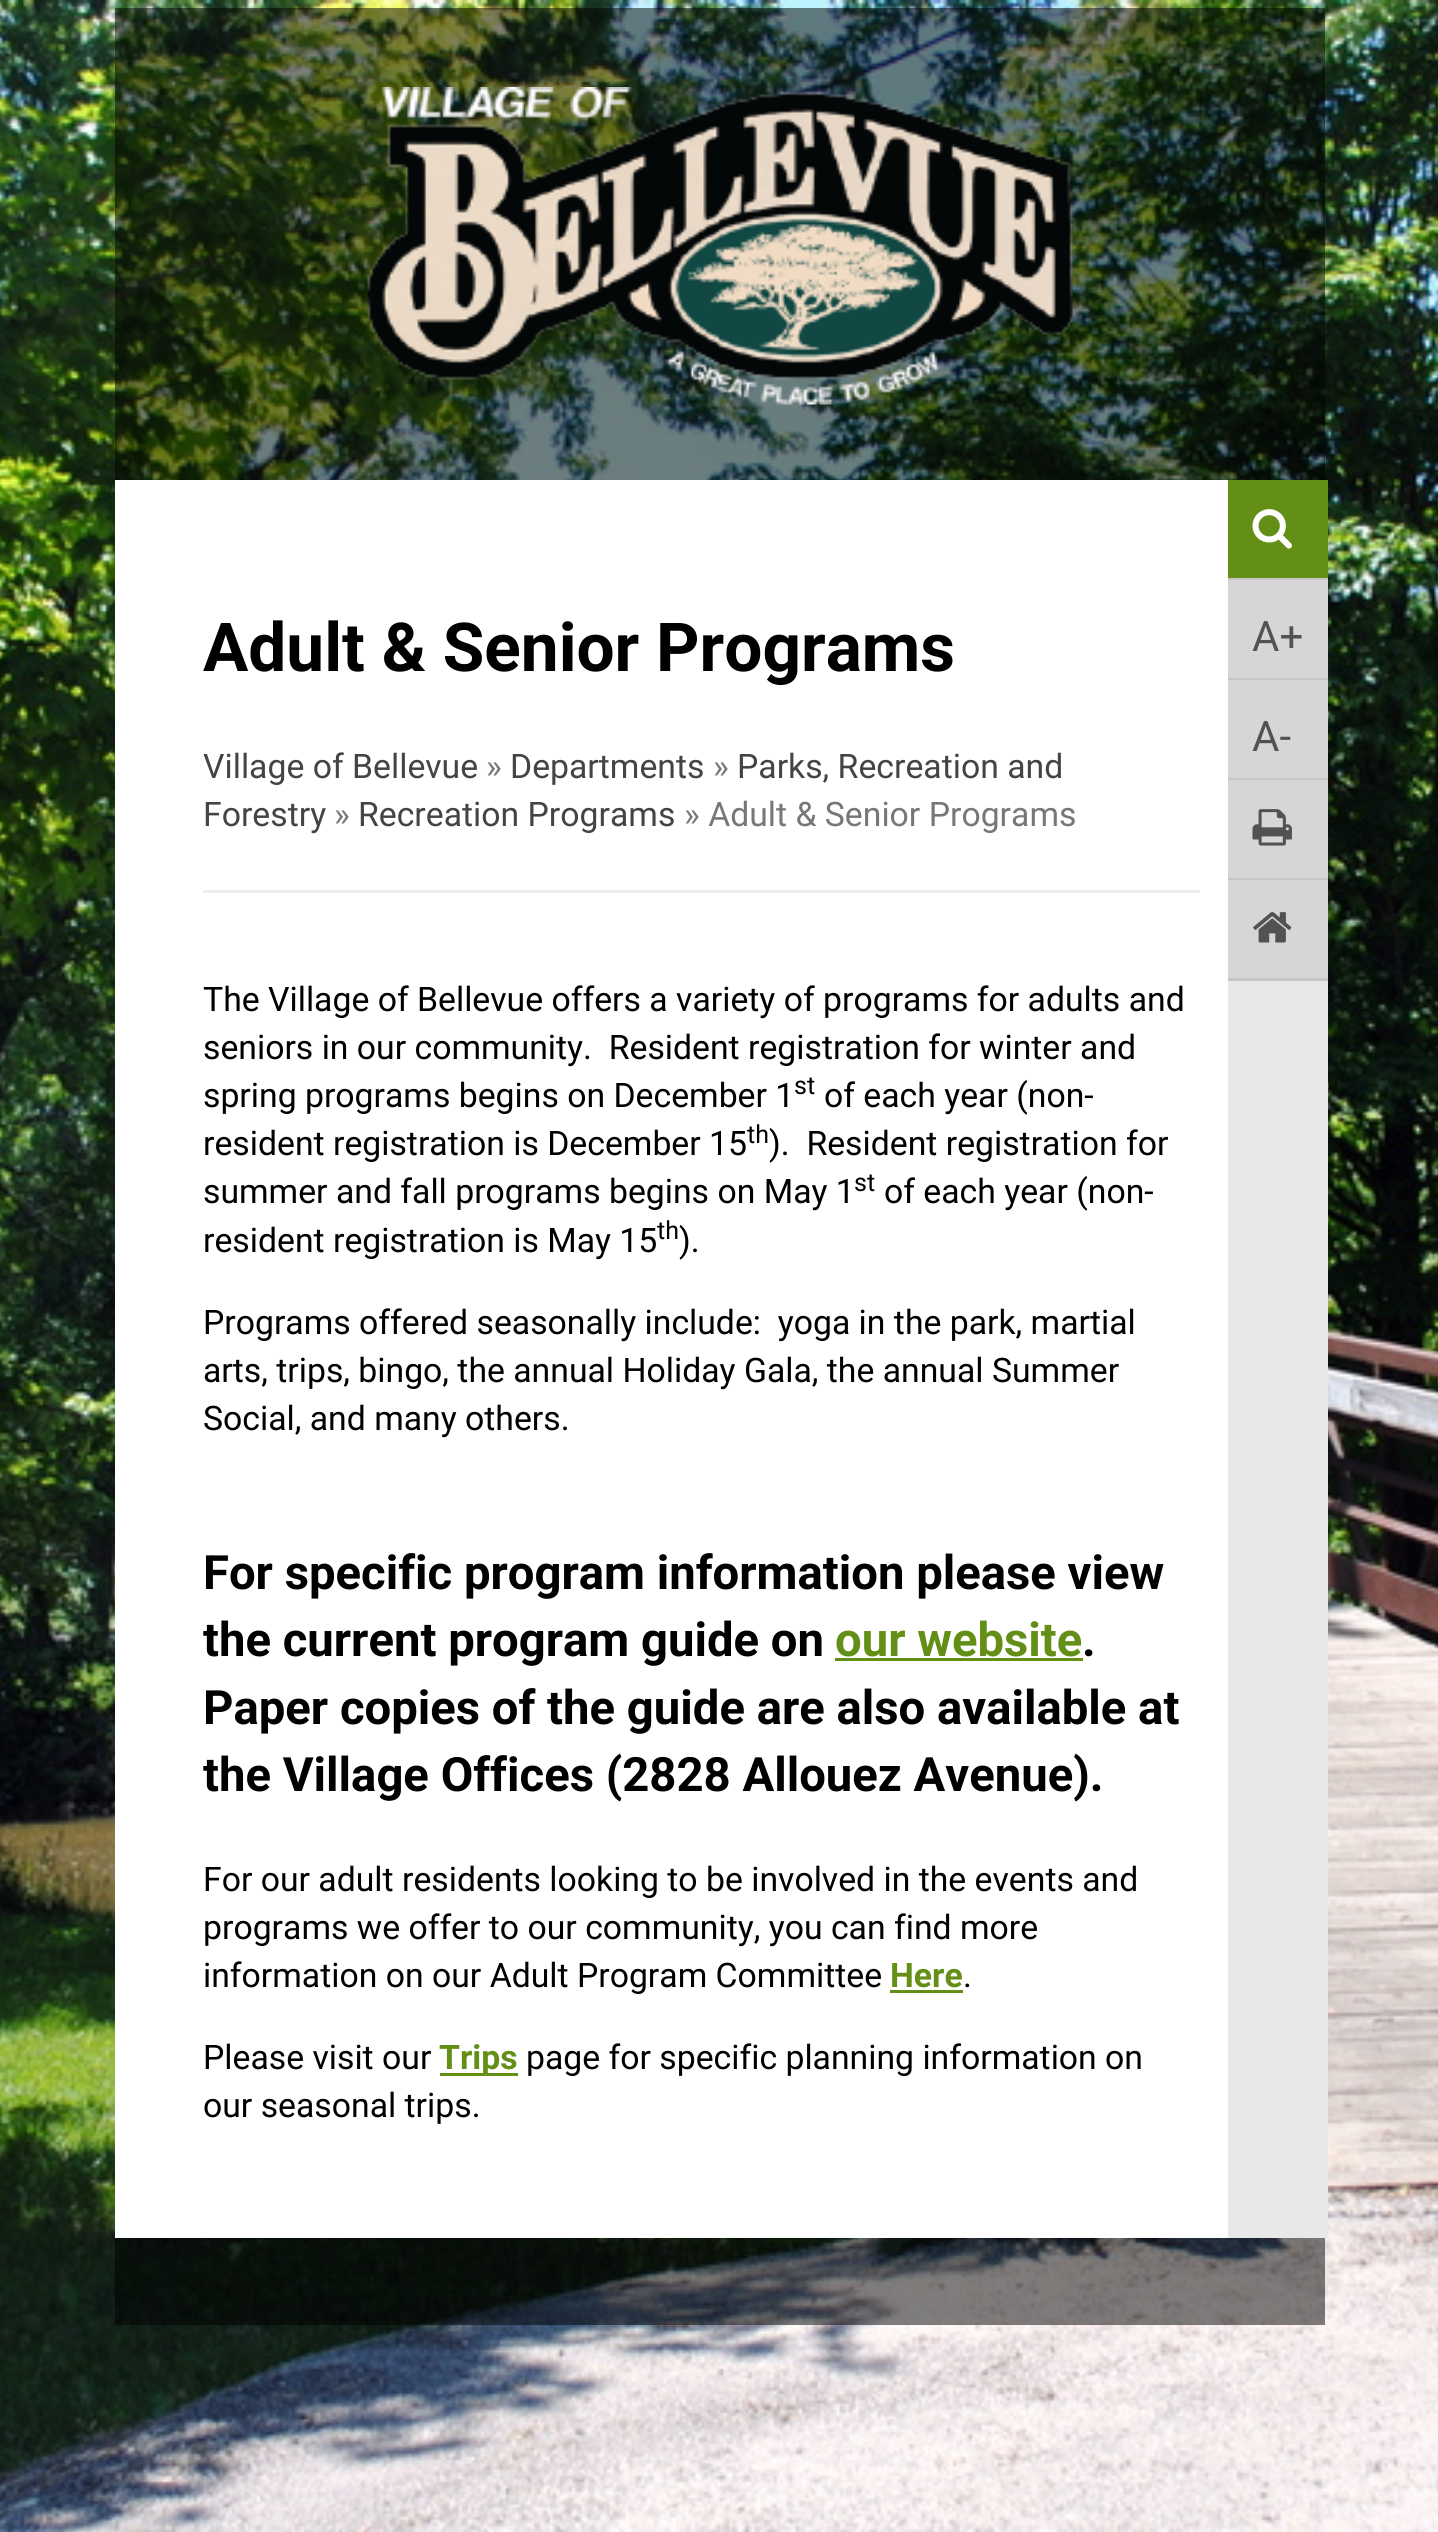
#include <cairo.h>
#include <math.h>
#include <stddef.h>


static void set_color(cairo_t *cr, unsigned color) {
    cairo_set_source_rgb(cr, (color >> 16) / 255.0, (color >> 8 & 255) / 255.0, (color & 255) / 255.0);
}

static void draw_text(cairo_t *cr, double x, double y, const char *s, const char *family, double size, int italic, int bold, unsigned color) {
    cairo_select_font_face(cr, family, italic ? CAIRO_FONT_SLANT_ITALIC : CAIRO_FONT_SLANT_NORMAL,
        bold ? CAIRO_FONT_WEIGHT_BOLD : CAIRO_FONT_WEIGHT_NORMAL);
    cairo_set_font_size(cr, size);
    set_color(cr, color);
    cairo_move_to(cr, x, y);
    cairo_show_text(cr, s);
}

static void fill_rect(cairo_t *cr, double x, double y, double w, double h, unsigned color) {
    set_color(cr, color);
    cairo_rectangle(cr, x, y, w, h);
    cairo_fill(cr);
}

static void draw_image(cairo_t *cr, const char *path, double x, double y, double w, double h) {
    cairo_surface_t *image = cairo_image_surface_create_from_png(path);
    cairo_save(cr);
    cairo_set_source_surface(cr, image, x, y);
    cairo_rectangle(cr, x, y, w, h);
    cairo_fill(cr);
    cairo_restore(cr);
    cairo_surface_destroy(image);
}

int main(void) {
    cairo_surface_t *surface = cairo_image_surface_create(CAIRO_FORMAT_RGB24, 1438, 2532);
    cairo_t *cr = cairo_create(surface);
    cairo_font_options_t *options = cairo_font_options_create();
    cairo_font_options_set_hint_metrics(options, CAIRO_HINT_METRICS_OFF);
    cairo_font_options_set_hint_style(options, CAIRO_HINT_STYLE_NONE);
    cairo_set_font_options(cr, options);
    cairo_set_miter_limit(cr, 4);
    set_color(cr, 0xFFFFFF);
    cairo_paint(cr);
    draw_image(cr, "assets/img1.png", 0, 0, 1438, 2532);
    cairo_set_source_rgba(cr, 0, 0, 0, 0.5);
    cairo_rectangle(cr, 115, 8, 1210, 2317);
    cairo_fill(cr);
    draw_image(cr, "assets/img2.png", 367, 87, 706, 318);
    fill_rect(cr, 115, 480, 1113, 1758, 0xFFFFFF);
    draw_text(cr, 203, 671, "Adult & Senior Programs", "Roboto", 67.5, 0, 1, 0x000000);
    fill_rect(cr, 1228, 981, 100, 1257, 0xE8E8E8);
    fill_rect(cr, 1228, 480, 100, 98, 0x638F16);
    fill_rect(cr, 1228, 578, 100, 2, 0xC6C6C6);
    draw_image(cr, "assets/img3.png", 1252, 509, 40, 40);
    fill_rect(cr, 1228, 580, 100, 98, 0xD6D6D6);
    fill_rect(cr, 1228, 678, 100, 2, 0xC6C6C6);
    draw_text(cr, 1252, 651, "A+", "Roboto", 42, 0, 0, 0x525252);
    fill_rect(cr, 1228, 680, 100, 98, 0xD6D6D6);
    fill_rect(cr, 1228, 778, 100, 2, 0xC6C6C6);
    draw_text(cr, 1252, 751, "A-", "Roboto", 42, 0, 0, 0x525252);
    fill_rect(cr, 1228, 780, 100, 98, 0xD6D6D6);
    fill_rect(cr, 1228, 878, 100, 2, 0xC6C6C6);
    draw_image(cr, "assets/img4.png", 1252, 809, 40, 37);
    fill_rect(cr, 1228, 880, 100, 98, 0xD6D6D6);
    fill_rect(cr, 1228, 978, 100, 3, 0xC6C6C6);
    draw_image(cr, "assets/img5.png", 1253, 912, 39, 31);
    draw_text(cr, 203, 778, "Village of Bellevue", "Roboto", 33.75, 0, 0, 0x444444);
    draw_text(cr, 486, 778, "»", "Roboto", 33.75, 0, 0, 0x777777);
    draw_text(cr, 510, 778, "Departments", "Roboto", 33.75, 0, 0, 0x444444);
    draw_text(cr, 713, 778, "»", "Roboto", 33.75, 0, 0, 0x777777);
    draw_text(cr, 737, 778, "Parks, Recreation and", "Roboto", 33.75, 0, 0, 0x444444);
    draw_text(cr, 203, 826, "Forestry", "Roboto", 33.75, 0, 0, 0x444444);
    draw_text(cr, 334, 826, "»", "Roboto", 33.75, 0, 0, 0x777777);
    draw_text(cr, 358, 826, "Recreation Programs", "Roboto", 33.75, 0, 0, 0x444444);
    draw_text(cr, 684, 826, "» Adult & Senior Programs", "Roboto", 33.75, 0, 0, 0x777777);
    fill_rect(cr, 203, 890, 997, 3, 0xEEEEEE);
    draw_text(cr, 203, 1011, "The Village of Bellevue offers a variety of programs for adults and", "Roboto", 33.75, 0, 0, 0x000000);
    draw_text(cr, 203, 1059, "seniors in our community.  Resident registration for winter and", "Roboto", 33.75, 0, 0, 0x000000);
    draw_text(cr, 203, 1107, "spring programs begins on December 1", "Roboto", 33.75, 0, 0, 0x000000);
    draw_text(cr, 794, 1094, "st", "Roboto", 25, 0, 0, 0x000000);
    draw_text(cr, 824, 1107, "of each year (non-", "Roboto", 33.75, 0, 0, 0x000000);
    draw_text(cr, 203, 1155, "resident registration is December 15", "Roboto", 33.75, 0, 0, 0x000000);
    draw_text(cr, 747, 1143, "th", "Roboto", 25, 0, 0, 0x000000);
    draw_text(cr, 769, 1155, ").  Resident registration for", "Roboto", 33.75, 0, 0, 0x000000);
    draw_text(cr, 203, 1203, "summer and fall programs begins on May 1", "Roboto", 33.75, 0, 0, 0x000000);
    draw_text(cr, 854, 1191, "st", "Roboto", 25, 0, 0, 0x000000);
    draw_text(cr, 884, 1203, "of each year (non-", "Roboto", 33.75, 0, 0, 0x000000);
    draw_text(cr, 203, 1252, "resident registration is May 15", "Roboto", 33.75, 0, 0, 0x000000);
    draw_text(cr, 657, 1239, "th", "Roboto", 25, 0, 0, 0x000000);
    draw_text(cr, 679, 1252, ").", "Roboto", 33.75, 0, 0, 0x000000);
    draw_text(cr, 203, 1334, "Programs offered seasonally include:  yoga in the park, martial", "Roboto", 33.75, 0, 0, 0x000000);
    draw_text(cr, 203, 1382, "arts, trips, bingo, the annual Holiday Gala, the annual Summer", "Roboto", 33.75, 0, 0, 0x000000);
    draw_text(cr, 203, 1430, "Social, and many others.", "Roboto", 33.75, 0, 0, 0x000000);
    draw_text(cr, 203, 1589, "For specific program information please view", "Roboto", 47.25, 0, 1, 0x000000);
    draw_text(cr, 203, 1656, "the current program guide on", "Roboto", 47.25, 0, 1, 0x000000);
    draw_text(cr, 835, 1656, "our website", "Roboto", 47.25, 0, 1, 0x638F16);
    fill_rect(cr, 835, 1658, 248, 3, 0x638F16);
    draw_text(cr, 1082, 1656, ".", "Roboto", 47.25, 0, 1, 0x000000);
    draw_text(cr, 203, 1724, "Paper copies of the guide are also available at", "Roboto", 47.25, 0, 1, 0x000000);
    draw_text(cr, 203, 1791, "the Village Offices (2828 Allouez Avenue).", "Roboto", 47.25, 0, 1, 0x000000);
    draw_text(cr, 203, 1891, "For our adult residents looking to be involved in the events and", "Roboto", 33.75, 0, 0, 0x000000);
    draw_text(cr, 203, 1939, "programs we offer to our community, you can find more", "Roboto", 33.75, 0, 0, 0x000000);
    draw_text(cr, 203, 1987, "information on our Adult Program Committee", "Roboto", 33.75, 0, 0, 0x000000);
    draw_text(cr, 890, 1987, "Here", "Roboto", 33.75, 0, 1, 0x638F16);
    draw_text(cr, 963, 1987, ".", "Roboto", 33.75, 0, 0, 0x000000);
    fill_rect(cr, 890, 1990, 73, 3, 0x638F16);
    draw_text(cr, 203, 2069, "Please visit our", "Roboto", 33.75, 0, 0, 0x000000);
    fill_rect(cr, 440, 2073, 78, 3, 0x638F16);
    draw_text(cr, 439, 2069, "Trips", "Roboto", 33.75, 0, 1, 0x638F16);
    draw_text(cr, 526, 2069, "page for specific planning information on", "Roboto", 33.75, 0, 0, 0x000000);
    draw_text(cr, 203, 2117, "our seasonal trips.", "Roboto", 33.75, 0, 0, 0x000000);
    cairo_surface_write_to_png(surface, "output.png");
    cairo_font_options_destroy(options);
    cairo_destroy(cr);
    cairo_surface_destroy(surface);
    return 0;
}
